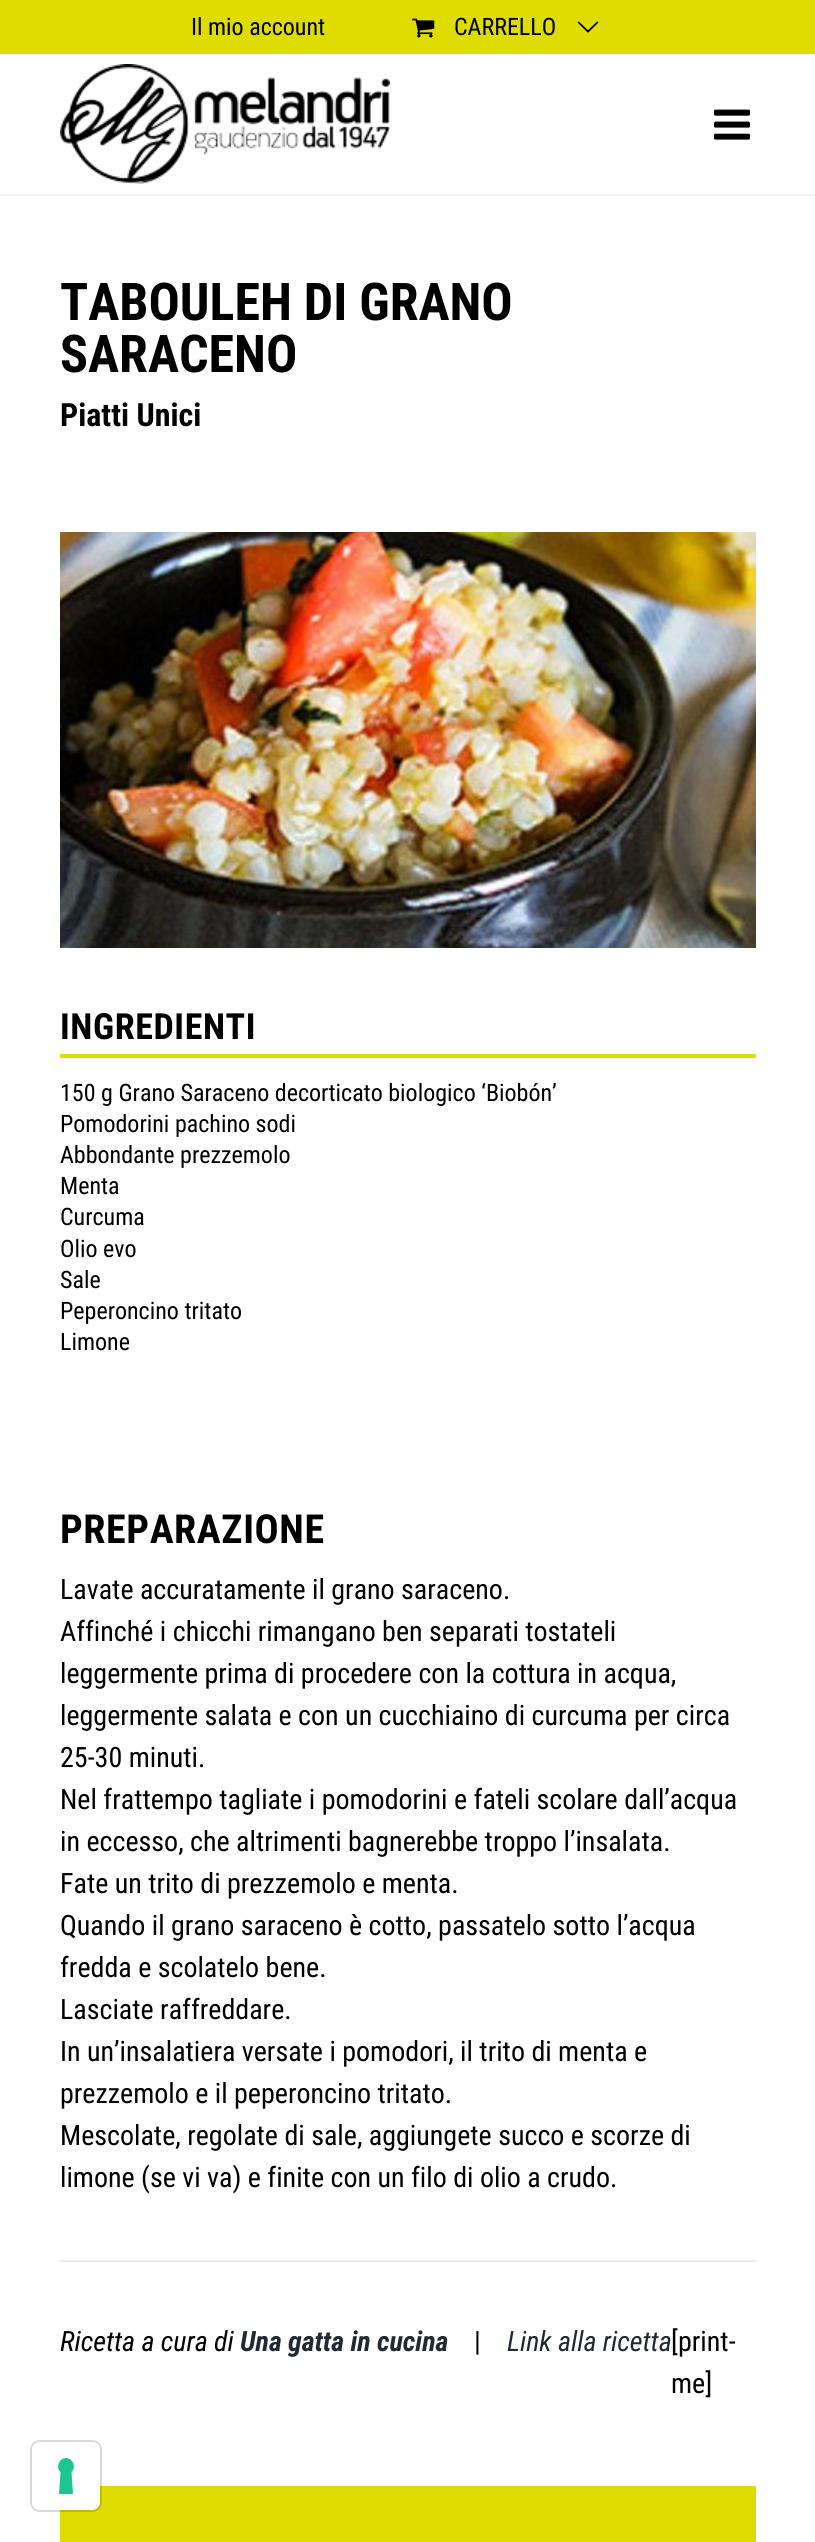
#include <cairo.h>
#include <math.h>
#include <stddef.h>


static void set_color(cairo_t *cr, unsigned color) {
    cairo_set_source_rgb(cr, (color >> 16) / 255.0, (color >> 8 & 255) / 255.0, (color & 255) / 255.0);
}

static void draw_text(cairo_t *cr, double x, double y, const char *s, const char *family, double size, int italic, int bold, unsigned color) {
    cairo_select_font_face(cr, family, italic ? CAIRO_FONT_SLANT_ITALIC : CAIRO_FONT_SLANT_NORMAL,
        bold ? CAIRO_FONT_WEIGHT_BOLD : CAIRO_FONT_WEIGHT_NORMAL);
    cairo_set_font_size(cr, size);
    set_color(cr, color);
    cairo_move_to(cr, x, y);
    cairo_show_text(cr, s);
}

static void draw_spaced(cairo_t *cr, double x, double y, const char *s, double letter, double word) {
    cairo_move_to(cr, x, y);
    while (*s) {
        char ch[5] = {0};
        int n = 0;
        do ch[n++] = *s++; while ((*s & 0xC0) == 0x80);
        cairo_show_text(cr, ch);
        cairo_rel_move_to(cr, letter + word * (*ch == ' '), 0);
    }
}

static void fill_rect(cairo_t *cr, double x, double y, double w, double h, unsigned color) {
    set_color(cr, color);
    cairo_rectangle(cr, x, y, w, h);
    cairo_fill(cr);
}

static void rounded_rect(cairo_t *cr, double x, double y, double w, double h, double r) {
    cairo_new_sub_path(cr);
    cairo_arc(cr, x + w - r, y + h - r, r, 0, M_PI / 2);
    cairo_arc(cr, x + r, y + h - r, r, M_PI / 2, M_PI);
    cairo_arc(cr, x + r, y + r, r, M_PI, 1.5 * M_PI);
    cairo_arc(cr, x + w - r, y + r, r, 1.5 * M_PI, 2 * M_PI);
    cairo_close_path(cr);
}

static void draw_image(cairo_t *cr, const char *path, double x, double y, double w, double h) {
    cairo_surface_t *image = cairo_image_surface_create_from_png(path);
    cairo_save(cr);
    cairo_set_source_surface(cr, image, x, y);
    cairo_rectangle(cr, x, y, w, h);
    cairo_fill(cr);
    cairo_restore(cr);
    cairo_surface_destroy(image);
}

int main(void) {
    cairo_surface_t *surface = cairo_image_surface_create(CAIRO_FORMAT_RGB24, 815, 2542);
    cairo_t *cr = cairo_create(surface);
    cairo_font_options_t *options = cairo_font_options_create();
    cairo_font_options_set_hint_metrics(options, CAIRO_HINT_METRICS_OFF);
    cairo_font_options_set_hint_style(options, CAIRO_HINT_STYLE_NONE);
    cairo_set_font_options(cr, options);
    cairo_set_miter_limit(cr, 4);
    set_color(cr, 0xFFFFFF);
    cairo_paint(cr);
    fill_rect(cr, 0, 0, 815, 54, 0xDEDC00);
    draw_text(cr, 191, 35, "Il mio account", "Roboto Condensed", 24, 0, 0, 0x000000);
    draw_image(cr, "assets/img1.png", 412, 18, 23, 20);
    draw_text(cr, 454, 35, "CARRELLO", "Roboto Condensed", 24, 0, 0, 0x000000);
    draw_image(cr, "assets/img2.png", 577, 21, 22, 12);
    fill_rect(cr, 0, 194, 815, 2, 0xF3F3F3);
    draw_image(cr, "assets/img3.png", 60, 64, 330, 120);
    draw_image(cr, "assets/img4.png", 714, 109, 36, 31);
    draw_text(cr, 60, 320, "TABOULEH DI GRANO", "Roboto Condensed", 52, 0, 1, 0x000000);
    draw_text(cr, 60, 372, "SARACENO", "Roboto Condensed", 52, 0, 1, 0x000000);
    draw_text(cr, 60, 426, "Piatti Unici", "Roboto Condensed", 32, 0, 1, 0x000000);
    draw_image(cr, "assets/img5.png", 60, 532, 696, 416);
    fill_rect(cr, 60, 1054, 696, 4, 0xDEDC00);
    cairo_set_font_size(cr, 36);
    set_color(cr, 0x000000);
    draw_spaced(cr, 60, 1039, "INGREDIENTI", 0.6, 0);
    draw_text(cr, 60, 1101, "150 g Grano Saraceno decorticato biologico ‘Biobón’", "Roboto Condensed", 24, 0, 0, 0x000000);
    draw_text(cr, 60, 1132, "Pomodorini pachino sodi", "Roboto Condensed", 24, 0, 0, 0x000000);
    draw_text(cr, 60, 1163, "Abbondante prezzemolo", "Roboto Condensed", 24, 0, 0, 0x000000);
    draw_text(cr, 60, 1194, "Menta", "Roboto Condensed", 24, 0, 0, 0x000000);
    draw_text(cr, 60, 1225, "Curcuma", "Roboto Condensed", 24, 0, 0, 0x000000);
    draw_text(cr, 60, 1257, "Olio evo", "Roboto Condensed", 24, 0, 0, 0x000000);
    draw_text(cr, 60, 1288, "Sale", "Roboto Condensed", 24, 0, 0, 0x000000);
    draw_text(cr, 60, 1319, "Peperoncino tritato", "Roboto Condensed", 24, 0, 0, 0x000000);
    draw_text(cr, 60, 1350, "Limone", "Roboto Condensed", 24, 0, 0, 0x000000);
    cairo_select_font_face(cr, "Roboto Condensed", CAIRO_FONT_SLANT_NORMAL, CAIRO_FONT_WEIGHT_BOLD);
    cairo_set_font_size(cr, 40);
    draw_spaced(cr, 60, 1543, "PREPARAZIONE", 0.6, 0);
    draw_text(cr, 60, 1599, "Lavate accuratamente il grano saraceno.", "Roboto Condensed", 28, 0, 0, 0x000000);
    draw_text(cr, 60, 1641, "Affinché i chicchi rimangano ben separati tostateli", "Roboto Condensed", 28, 0, 0, 0x000000);
    draw_text(cr, 60, 1683, "leggermente prima di procedere con la cottura in acqua,", "Roboto Condensed", 28, 0, 0, 0x000000);
    draw_text(cr, 60, 1725, "leggermente salata e con un cucchiaino di curcuma per circa", "Roboto Condensed", 28, 0, 0, 0x000000);
    draw_text(cr, 60, 1767, "25-30 minuti.", "Roboto Condensed", 28, 0, 0, 0x000000);
    draw_text(cr, 60, 1809, "Nel frattempo tagliate i pomodorini e fateli scolare dall’acqua", "Roboto Condensed", 28, 0, 0, 0x000000);
    draw_text(cr, 60, 1851, "in eccesso, che altrimenti bagnerebbe troppo l’insalata.", "Roboto Condensed", 28, 0, 0, 0x000000);
    draw_text(cr, 60, 1893, "Fate un trito di prezzemolo e menta.", "Roboto Condensed", 28, 0, 0, 0x000000);
    draw_text(cr, 60, 1935, "Quando il grano saraceno è cotto, passatelo sotto l’acqua", "Roboto Condensed", 28, 0, 0, 0x000000);
    draw_text(cr, 60, 1977, "fredda e scolatelo bene.", "Roboto Condensed", 28, 0, 0, 0x000000);
    draw_text(cr, 60, 2019, "Lasciate raffreddare.", "Roboto Condensed", 28, 0, 0, 0x000000);
    draw_text(cr, 60, 2061, "In un’insalatiera versate i pomodori, il trito di menta e", "Roboto Condensed", 28, 0, 0, 0x000000);
    draw_text(cr, 60, 2103, "prezzemolo e il peperoncino tritato.", "Roboto Condensed", 28, 0, 0, 0x000000);
    draw_text(cr, 60, 2145, "Mescolate, regolate di sale, aggiungete succo e scorze di", "Roboto Condensed", 28, 0, 0, 0x000000);
    draw_text(cr, 60, 2187, "limone (se vi va) e finite con un filo di olio a crudo.", "Roboto Condensed", 28, 0, 0, 0x000000);
    fill_rect(cr, 60, 2260, 696, 2, 0xECEBEB);
    draw_text(cr, 60, 2351, "Ricetta a cura di", "Roboto Condensed", 28, 1, 0, 0x000000);
    draw_text(cr, 240, 2351, "Una gatta in cucina", "Roboto Condensed", 28, 1, 1, 0x212934);
    draw_text(cr, 474, 2351, "|", "Roboto Condensed", 28, 0, 0, 0x000000);
    draw_text(cr, 507, 2351, "Link alla ricetta", "Roboto Condensed", 28, 1, 0, 0x212934);
    draw_text(cr, 671, 2351, "[print-", "Roboto Condensed", 28, 0, 0, 0x000000);
    draw_text(cr, 671, 2393, "me]", "Roboto Condensed", 28, 0, 0, 0x000000);
    fill_rect(cr, 60, 2486, 696, 56, 0xDEDC00);
    rounded_rect(cr, 31, 2441, 70, 70, 9);
    cairo_set_source_rgba(cr, 0, 0, 0, 0.15);
    cairo_stroke(cr);
    set_color(cr, 0xFFFFFF);
    rounded_rect(cr, 32, 2442, 68, 68, 8);
    cairo_fill(cr);
    set_color(cr, 0x1CC691);
    cairo_set_fill_rule(cr, CAIRO_FILL_RULE_EVEN_ODD);
    cairo_new_path(cr);
    cairo_move_to(cr, 66, 2458);
    cairo_curve_to(cr, 73, 2458, 76.5, 2467.5, 71.5, 2472);
    cairo_line_to(cr, 73, 2494);
    cairo_line_to(cr, 59, 2494);
    cairo_line_to(cr, 60.5, 2472);
    cairo_curve_to(cr, 55.5, 2467.5, 59, 2458, 66, 2458);
    cairo_close_path(cr);
    cairo_fill(cr);
    cairo_surface_write_to_png(surface, "output.png");
    cairo_font_options_destroy(options);
    cairo_destroy(cr);
    cairo_surface_destroy(surface);
    return 0;
}
